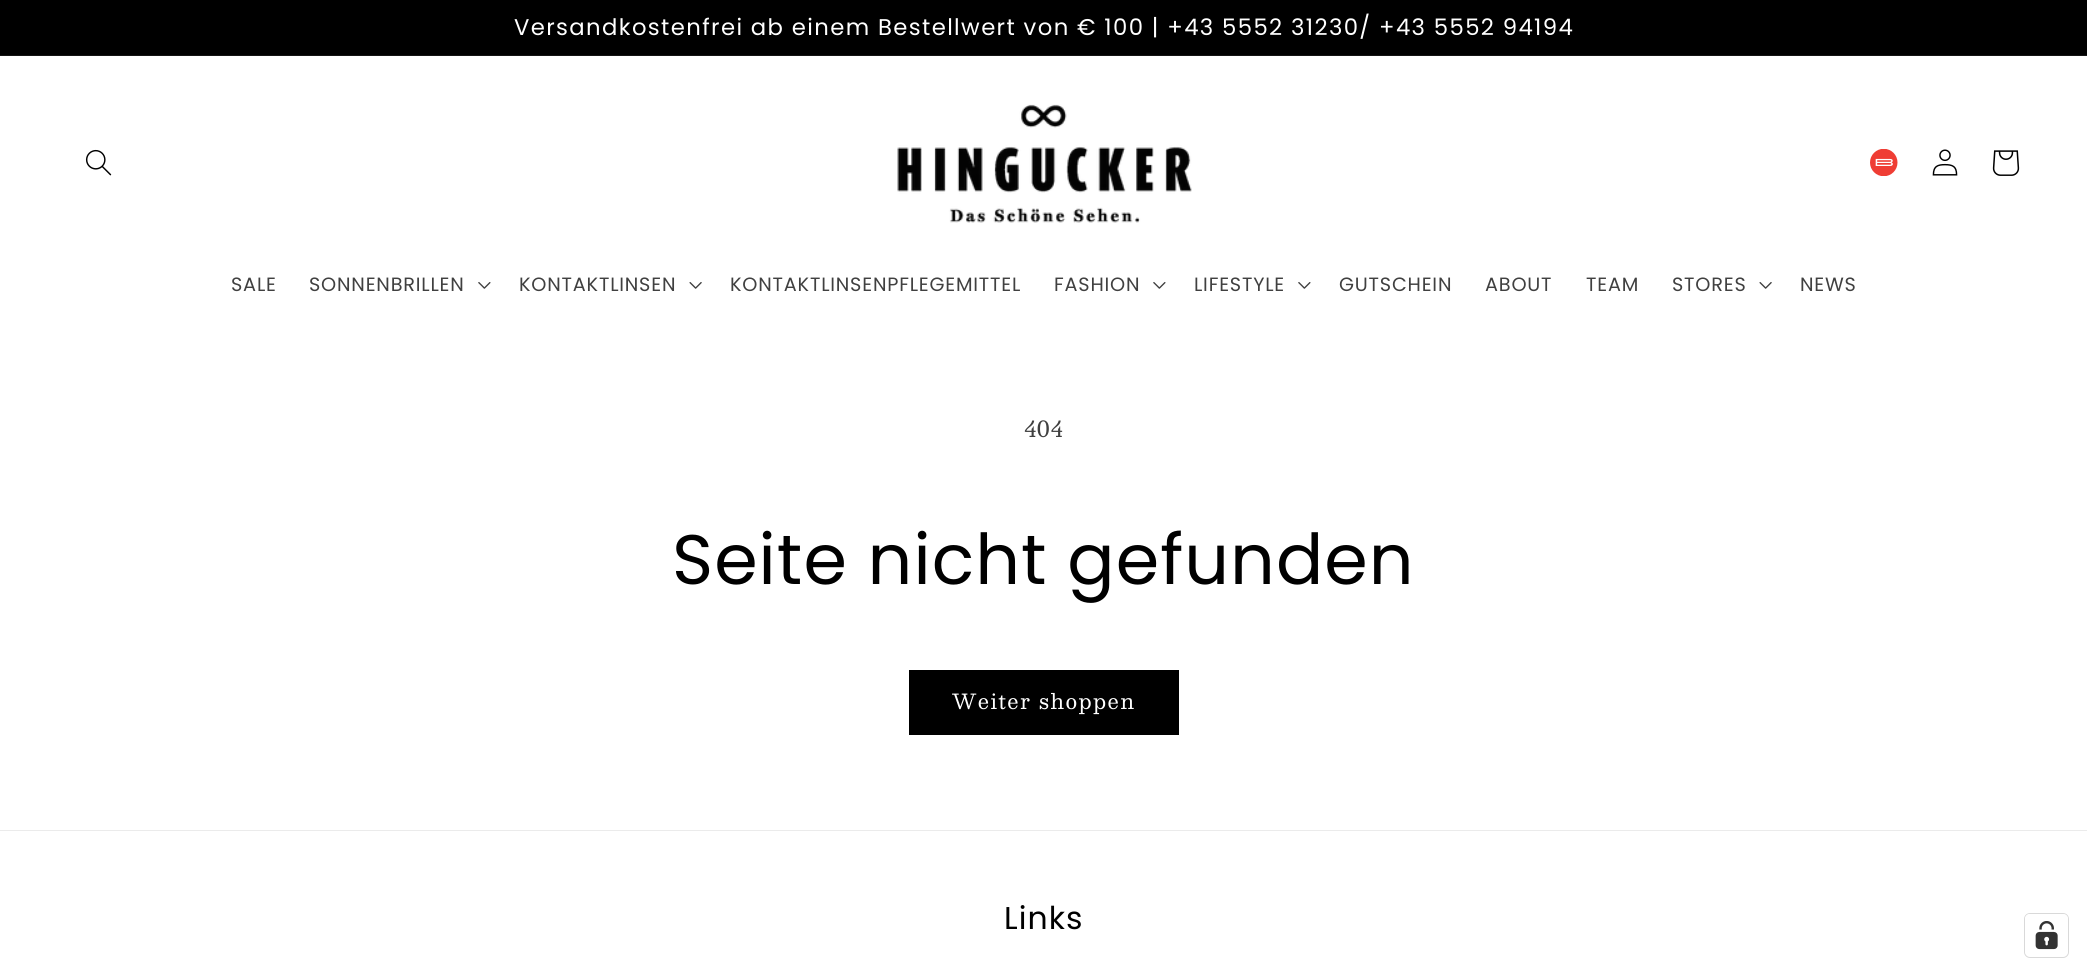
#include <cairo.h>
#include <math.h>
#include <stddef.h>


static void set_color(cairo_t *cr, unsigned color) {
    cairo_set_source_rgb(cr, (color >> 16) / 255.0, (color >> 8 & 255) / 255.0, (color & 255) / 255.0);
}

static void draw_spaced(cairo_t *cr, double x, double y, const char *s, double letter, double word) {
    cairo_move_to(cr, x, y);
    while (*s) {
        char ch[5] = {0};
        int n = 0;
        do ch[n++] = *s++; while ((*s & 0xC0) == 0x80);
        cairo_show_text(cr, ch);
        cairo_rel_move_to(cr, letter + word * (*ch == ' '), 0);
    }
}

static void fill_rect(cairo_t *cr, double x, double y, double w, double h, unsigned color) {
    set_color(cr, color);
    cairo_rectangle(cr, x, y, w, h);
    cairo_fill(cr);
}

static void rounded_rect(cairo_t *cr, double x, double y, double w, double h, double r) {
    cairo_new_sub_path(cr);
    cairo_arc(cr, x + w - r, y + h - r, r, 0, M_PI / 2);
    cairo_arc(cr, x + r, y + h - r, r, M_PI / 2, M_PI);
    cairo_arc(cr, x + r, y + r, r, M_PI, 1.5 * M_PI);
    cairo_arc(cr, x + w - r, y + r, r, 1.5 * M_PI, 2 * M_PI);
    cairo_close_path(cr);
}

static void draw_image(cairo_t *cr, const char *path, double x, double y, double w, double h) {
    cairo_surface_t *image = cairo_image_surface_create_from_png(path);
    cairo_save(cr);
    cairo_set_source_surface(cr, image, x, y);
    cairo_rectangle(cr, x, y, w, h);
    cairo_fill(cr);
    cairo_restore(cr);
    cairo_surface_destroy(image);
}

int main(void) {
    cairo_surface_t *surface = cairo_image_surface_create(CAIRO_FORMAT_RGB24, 2087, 976);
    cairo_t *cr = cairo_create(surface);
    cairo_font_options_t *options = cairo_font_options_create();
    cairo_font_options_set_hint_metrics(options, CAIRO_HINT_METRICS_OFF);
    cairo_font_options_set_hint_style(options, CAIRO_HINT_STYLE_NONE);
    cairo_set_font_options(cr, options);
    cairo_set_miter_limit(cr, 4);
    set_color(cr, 0xFFFFFF);
    cairo_paint(cr);
    fill_rect(cr, 0, 0, 2087, 55, 0x000000);
    fill_rect(cr, 0, 55, 2087, 1, 0x141414);
    cairo_select_font_face(cr, "Poppins", CAIRO_FONT_SLANT_NORMAL, CAIRO_FONT_WEIGHT_NORMAL);
    cairo_set_font_size(cr, 22.75);
    set_color(cr, 0xFFFFFF);
    draw_spaced(cr, 514, 35, "Versandkostenfrei ab einem Bestellwert von € 100 | +43 5552 31230/ +43 5552 94194", 1.38, 0);
    draw_image(cr, "assets/img1.png", 85, 149, 27, 27);
    draw_image(cr, "assets/img2.png", 897, 104, 295, 119);
    draw_image(cr, "assets/img3.png", 1870, 149, 28, 27);
    draw_image(cr, "assets/img4.png", 1932, 149, 26, 27);
    draw_image(cr, "assets/img5.png", 1992, 150, 28, 26);
    cairo_set_font_size(cr, 19.25);
    set_color(cr, 0x404040);
    draw_spaced(cr, 231, 291, "SALE", 0.8, 0);
    draw_spaced(cr, 309, 291, "SONNENBRILLEN", 0.8, 0);
    draw_image(cr, "assets/img6.png", 478, 282, 13, 7);
    draw_spaced(cr, 519, 291, "KONTAKTLINSEN", 0.8, 0);
    draw_image(cr, "assets/img7.png", 689, 282, 13, 7);
    draw_spaced(cr, 730, 291, "KONTAKTLINSENPFLEGEMITTEL", 0.8, 0);
    draw_spaced(cr, 1054, 291, "FASHION", 0.8, 0);
    draw_image(cr, "assets/img6.png", 1153, 282, 13, 7);
    draw_spaced(cr, 1194, 291, "LIFESTYLE", 0.8, 0);
    draw_image(cr, "assets/img6.png", 1298, 282, 13, 7);
    draw_spaced(cr, 1339, 291, "GUTSCHEIN", 0.8, 0);
    draw_spaced(cr, 1485, 291, "ABOUT", 0.8, 0);
    draw_spaced(cr, 1586, 291, "TEAM", 0.8, 0);
    draw_spaced(cr, 1672, 291, "STORES", 0.8, 0);
    draw_image(cr, "assets/img7.png", 1759, 282, 13, 7);
    draw_spaced(cr, 1800, 291, "NEWS", 0.8, 0);
    cairo_select_font_face(cr, "Besley", CAIRO_FONT_SLANT_NORMAL, CAIRO_FONT_WEIGHT_NORMAL);
    cairo_set_font_size(cr, 22);
    draw_spaced(cr, 1024, 437, "404", 0.8, 0);
    cairo_select_font_face(cr, "Poppins", CAIRO_FONT_SLANT_NORMAL, CAIRO_FONT_WEIGHT_NORMAL);
    cairo_set_font_size(cr, 70);
    set_color(cr, 0x000000);
    draw_spaced(cr, 672, 584, "Seite nicht gefunden", 1.05, 0);
    cairo_rectangle(cr, 909.5, 670.5, 269, 64);
    cairo_set_line_width(cr, 1);
    cairo_stroke(cr);
    fill_rect(cr, 910, 671, 268, 63, 0x000000);
    cairo_select_font_face(cr, "Besley", CAIRO_FONT_SLANT_NORMAL, CAIRO_FONT_WEIGHT_NORMAL);
    cairo_set_font_size(cr, 20.6);
    set_color(cr, 0xFFFFFF);
    draw_spaced(cr, 952, 709, "Weiter shoppen", 1.38, 0);
    fill_rect(cr, 0, 830, 2087, 1, 0xEBEBEB);
    cairo_select_font_face(cr, "Poppins", CAIRO_FONT_SLANT_NORMAL, CAIRO_FONT_WEIGHT_NORMAL);
    cairo_set_font_size(cr, 31.5);
    set_color(cr, 0x000000);
    draw_spaced(cr, 1004, 929, "Links", 1.05, 0);
    rounded_rect(cr, 2024.5, 913.5, 44, 44, 5.5);
    set_color(cr, 0xD9D9D9);
    cairo_stroke(cr);
    set_color(cr, 0xFFFFFF);
    rounded_rect(cr, 2025, 914, 43, 42, 5);
    cairo_fill(cr);
    draw_image(cr, "assets/img8.png", 2035, 921, 23, 29);
    cairo_surface_write_to_png(surface, "output.png");
    cairo_font_options_destroy(options);
    cairo_destroy(cr);
    cairo_surface_destroy(surface);
    return 0;
}
